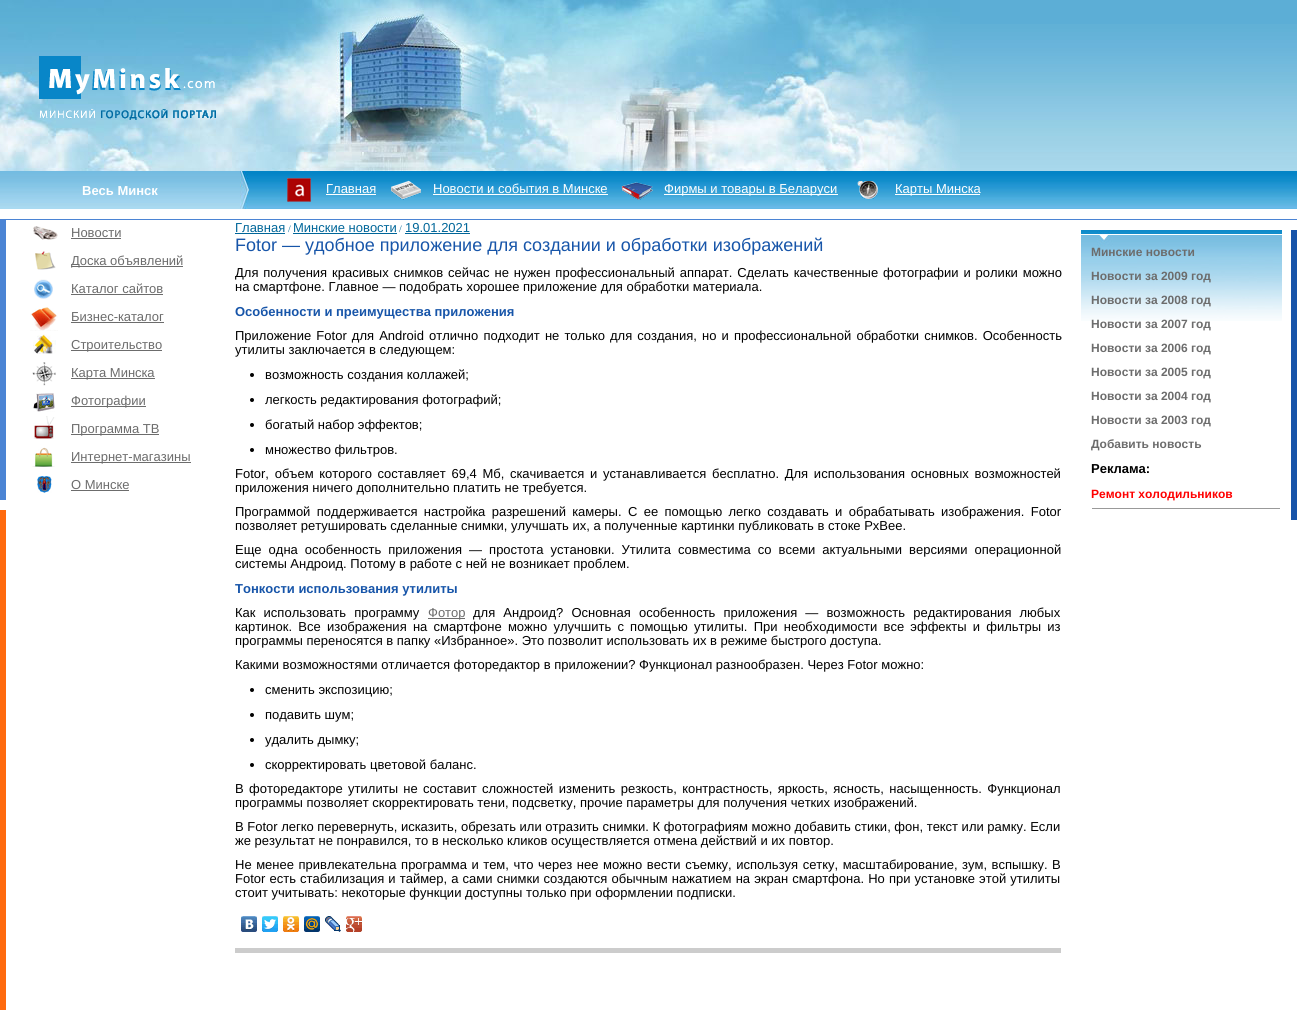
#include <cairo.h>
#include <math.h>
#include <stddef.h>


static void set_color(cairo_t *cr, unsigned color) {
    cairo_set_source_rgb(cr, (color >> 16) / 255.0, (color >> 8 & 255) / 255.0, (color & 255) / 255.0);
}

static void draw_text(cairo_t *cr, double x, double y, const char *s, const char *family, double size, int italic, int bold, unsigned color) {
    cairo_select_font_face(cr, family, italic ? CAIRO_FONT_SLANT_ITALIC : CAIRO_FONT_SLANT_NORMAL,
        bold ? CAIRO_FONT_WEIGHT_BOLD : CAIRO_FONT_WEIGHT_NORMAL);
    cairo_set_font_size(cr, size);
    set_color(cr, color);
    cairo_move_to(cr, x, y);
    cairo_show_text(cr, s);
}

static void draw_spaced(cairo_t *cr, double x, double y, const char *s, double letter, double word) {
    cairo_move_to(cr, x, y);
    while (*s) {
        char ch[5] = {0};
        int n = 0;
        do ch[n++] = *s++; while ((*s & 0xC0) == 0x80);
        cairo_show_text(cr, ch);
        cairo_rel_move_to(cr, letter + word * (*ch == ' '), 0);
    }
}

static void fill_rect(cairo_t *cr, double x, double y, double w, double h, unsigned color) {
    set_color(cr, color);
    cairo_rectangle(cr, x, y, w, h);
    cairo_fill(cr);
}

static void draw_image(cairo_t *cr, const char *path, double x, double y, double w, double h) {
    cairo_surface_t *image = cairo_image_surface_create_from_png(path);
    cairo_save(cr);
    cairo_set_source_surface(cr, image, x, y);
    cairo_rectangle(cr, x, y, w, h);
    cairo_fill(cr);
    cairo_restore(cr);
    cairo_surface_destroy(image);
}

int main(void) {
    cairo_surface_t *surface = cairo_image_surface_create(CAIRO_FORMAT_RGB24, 1297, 1010);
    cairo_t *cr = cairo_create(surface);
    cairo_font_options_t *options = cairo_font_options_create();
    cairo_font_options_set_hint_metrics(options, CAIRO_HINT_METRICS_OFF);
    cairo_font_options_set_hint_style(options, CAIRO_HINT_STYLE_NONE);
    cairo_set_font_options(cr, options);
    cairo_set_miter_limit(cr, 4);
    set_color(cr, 0xFFFFFF);
    cairo_paint(cr);
    fill_rect(cr, 960, 0, 337, 24, 0x5CAED6);
    draw_image(cr, "assets/img1.png", 960, 24, 337, 147);
    draw_image(cr, "assets/img2.png", 0, 0, 960, 171);
    draw_image(cr, "assets/img3.png", 39, 56, 177, 64);
    draw_image(cr, "assets/img4.png", 249, 171, 1048, 38);
    draw_image(cr, "assets/img5.png", 0, 171, 240, 38);
    draw_text(cr, 82, 195, "Весь Минск", "Liberation Sans", 13, 0, 1, 0xFFFFFF);
    draw_image(cr, "assets/img6.png", 240, 171, 9, 38);
    draw_image(cr, "assets/img7.png", 287, 178, 24, 24);
    draw_text(cr, 326, 193, "Главная", "Liberation Sans", 13, 0, 0, 0xFFFFFF);
    fill_rect(cr, 326, 194, 50, 1, 0xFFFFFF);
    draw_image(cr, "assets/img8.png", 391, 180, 30, 20);
    draw_text(cr, 433, 193, "Новости и события в Минске", "Liberation Sans", 13, 0, 0, 0xFFFFFF);
    fill_rect(cr, 433, 194, 175, 1, 0xFFFFFF);
    draw_image(cr, "assets/img9.png", 621, 182, 32, 18);
    fill_rect(cr, 664, 194, 174, 1, 0xFFFFFF);
    draw_text(cr, 664, 193, "Фирмы и товары в Беларуси", "Liberation Sans", 13, 0, 0, 0xFFFFFF);
    draw_image(cr, "assets/img10.png", 857, 181, 21, 18);
    fill_rect(cr, 895, 194, 85, 1, 0xFFFFFF);
    draw_text(cr, 895, 193, "Карты Минска", "Liberation Sans", 13, 0, 0, 0xFFFFFF);
    fill_rect(cr, 0, 219, 1297, 1, 0x4B84D4);
    fill_rect(cr, 0, 220, 6, 280, 0x4B84D4);
    draw_image(cr, "assets/img11.png", 33, 226, 25, 14);
    draw_text(cr, 71, 237, "Новости", "Liberation Sans", 13, 0, 0, 0x6C6C6C);
    fill_rect(cr, 71, 238, 50, 1, 0x6C6C6C);
    draw_image(cr, "assets/img12.png", 35, 251, 21, 19);
    fill_rect(cr, 71, 266, 112, 1, 0x6C6C6C);
    draw_text(cr, 71, 265, "Доска объявлений", "Liberation Sans", 13, 0, 0, 0x6C6C6C);
    draw_image(cr, "assets/img13.png", 34, 279, 19, 20);
    draw_text(cr, 71, 293, "Каталог сайтов", "Liberation Sans", 13, 0, 0, 0x6C6C6C);
    fill_rect(cr, 71, 294, 92, 1, 0x6C6C6C);
    draw_image(cr, "assets/img14.png", 30, 307, 28, 24);
    draw_text(cr, 71, 321, "Бизнес-каталог", "Liberation Sans", 13, 0, 0, 0x6C6C6C);
    fill_rect(cr, 71, 322, 93, 1, 0x6C6C6C);
    draw_image(cr, "assets/img15.png", 33, 334, 23, 20);
    fill_rect(cr, 71, 350, 91, 1, 0x6C6C6C);
    draw_text(cr, 71, 349, "Строительство", "Liberation Sans", 13, 0, 0, 0x6C6C6C);
    draw_image(cr, "assets/img16.png", 32, 362, 24, 24);
    fill_rect(cr, 71, 378, 84, 1, 0x6C6C6C);
    draw_text(cr, 71, 377, "Карта Минска", "Liberation Sans", 13, 0, 0, 0x6C6C6C);
    draw_image(cr, "assets/img17.png", 33, 393, 22, 19);
    fill_rect(cr, 71, 406, 75, 1, 0x6C6C6C);
    draw_text(cr, 71, 405, "Фотографии", "Liberation Sans", 13, 0, 0, 0x6C6C6C);
    draw_image(cr, "assets/img18.png", 33, 416, 23, 23);
    fill_rect(cr, 71, 434, 88, 1, 0x6C6C6C);
    draw_text(cr, 71, 433, "Программа ТВ", "Liberation Sans", 13, 0, 0, 0x6C6C6C);
    draw_image(cr, "assets/img19.png", 32, 447, 23, 20);
    fill_rect(cr, 71, 462, 120, 1, 0x6C6C6C);
    draw_text(cr, 71, 461, "Интернет-магазины", "Liberation Sans", 13, 0, 0, 0x6C6C6C);
    draw_image(cr, "assets/img20.png", 37, 476, 15, 17);
    draw_text(cr, 71, 489, "О Минске", "Liberation Sans", 13, 0, 0, 0x6C6C6C);
    fill_rect(cr, 71, 490, 58, 1, 0x6C6C6C);
    fill_rect(cr, 0, 510, 6, 500, 0xFF6A0E);
    draw_text(cr, 235, 232, "Главная", "Liberation Sans", 13, 0, 0, 0x006699);
    fill_rect(cr, 235, 233, 50, 1, 0x006699);
    draw_text(cr, 288, 232, "/", "Liberation Serif", 10, 0, 0, 0x006699);
    fill_rect(cr, 293, 233, 104, 1, 0x006699);
    draw_text(cr, 293, 232, "Минские новости", "Liberation Sans", 13, 0, 0, 0x006699);
    draw_text(cr, 399, 232, "/", "Liberation Serif", 10, 0, 0, 0x006699);
    fill_rect(cr, 405, 233, 65, 1, 0x006699);
    draw_text(cr, 405, 232, "19.01.2021", "Liberation Sans", 13, 0, 0, 0x006699);
    draw_text(cr, 235, 251, "Fotor — удобное приложение для создании и обработки изображений", "Liberation Sans", 18, 0, 0, 0x1755A9);
    cairo_set_font_size(cr, 13);
    set_color(cr, 0x000000);
    draw_spaced(cr, 235, 277, "Для получения красивых снимков сейчас не нужен профессиональный аппарат. Сделать качественные фотографии и ролики можно", 0, 1.25);
    draw_text(cr, 235, 291, "на смартфоне. Главное — подобрать хорошее приложение для обработки материала.", "Liberation Sans", 13, 0, 0, 0x000000);
    draw_text(cr, 235, 316, "Особенности и преимущества приложения", "Liberation Sans", 13, 0, 1, 0x1755A9);
    cairo_select_font_face(cr, "Liberation Sans", CAIRO_FONT_SLANT_NORMAL, CAIRO_FONT_WEIGHT_NORMAL);
    set_color(cr, 0x000000);
    draw_spaced(cr, 235, 340, "Приложение Fotor для Android отлично подходит не только для создания, но и профессиональной обработки снимков. Особенность", 0, 1.5);
    draw_text(cr, 235, 354, "утилиты заключается в следующем:", "Liberation Sans", 13, 0, 0, 0x000000);
    cairo_new_path(cr);
    cairo_arc(cr, 252, 375, 2, 0, 2 * M_PI);
    cairo_fill(cr);
    draw_text(cr, 265, 379, "возможность создания коллажей;", "Liberation Sans", 13, 0, 0, 0x000000);
    cairo_new_path(cr);
    cairo_arc(cr, 252, 400, 2, 0, 2 * M_PI);
    cairo_fill(cr);
    draw_text(cr, 265, 404, "легкость редактирования фотографий;", "Liberation Sans", 13, 0, 0, 0x000000);
    cairo_new_path(cr);
    cairo_arc(cr, 252, 425, 2, 0, 2 * M_PI);
    cairo_fill(cr);
    draw_text(cr, 265, 429, "богатый набор эффектов;", "Liberation Sans", 13, 0, 0, 0x000000);
    cairo_new_path(cr);
    cairo_arc(cr, 252, 450, 2, 0, 2 * M_PI);
    cairo_fill(cr);
    draw_text(cr, 265, 454, "множество фильтров.", "Liberation Sans", 13, 0, 0, 0x000000);
    draw_spaced(cr, 235, 478, "Fotor, объем которого составляет 69,4 Мб, скачивается и устанавливается бесплатно. Для использования основных возможностей", 0, 2.1);
    draw_text(cr, 235, 492, "приложения ничего дополнительно платить не требуется.", "Liberation Sans", 13, 0, 0, 0x000000);
    draw_spaced(cr, 235, 516, "Программой поддерживается настройка разрешений камеры. С ее помощью легко создавать и обрабатывать изображения. Fotor", 0, 2.75);
    draw_text(cr, 235, 530, "позволяет ретушировать сделанные снимки, улучшать их, а полученные картинки публиковать в стоке PxBee.", "Liberation Sans", 13, 0, 0, 0x000000);
    draw_spaced(cr, 235, 554, "Еще одна особенность приложения — простота установки. Утилита совместима со всеми актуальными версиями операционной", 0, 3.4);
    draw_text(cr, 235, 568, "системы Андроид. Потому в работе с ней не возникает проблем.", "Liberation Sans", 13, 0, 0, 0x000000);
    draw_text(cr, 235, 593, "Тонкости использования утилиты", "Liberation Sans", 13, 0, 1, 0x1755A9);
    cairo_select_font_face(cr, "Liberation Sans", CAIRO_FONT_SLANT_NORMAL, CAIRO_FONT_WEIGHT_NORMAL);
    set_color(cr, 0x000000);
    draw_spaced(cr, 235, 617, "Как использовать программу", 0, 4.5);
    fill_rect(cr, 428, 618, 37, 1, 0x6C6C6C);
    draw_text(cr, 428, 617, "Фотор", "Liberation Sans", 13, 0, 0, 0x6C6C6C);
    set_color(cr, 0x000000);
    draw_spaced(cr, 473, 617, "для Андроид? Основная особенность приложения — возможность редактирования любых", 0, 4.5);
    draw_spaced(cr, 235, 631, "картинок. Все изображения на смартфоне можно улучшить с помощью утилиты. При необходимости все эффекты и фильтры из", 0, 2.6);
    draw_text(cr, 235, 645, "программы переносятся в папку «Избранное». Это позволит использовать их в режиме быстрого доступа.", "Liberation Sans", 13, 0, 0, 0x000000);
    draw_text(cr, 235, 669, "Какими возможностями отличается фоторедактор в приложении? Функционал разнообразен. Через Fotor можно:", "Liberation Sans", 13, 0, 0, 0x000000);
    cairo_new_path(cr);
    cairo_arc(cr, 252, 690, 2, 0, 2 * M_PI);
    cairo_fill(cr);
    draw_text(cr, 265, 694, "сменить экспозицию;", "Liberation Sans", 13, 0, 0, 0x000000);
    cairo_new_path(cr);
    cairo_arc(cr, 252, 715, 2, 0, 2 * M_PI);
    cairo_fill(cr);
    draw_text(cr, 265, 719, "подавить шум;", "Liberation Sans", 13, 0, 0, 0x000000);
    cairo_new_path(cr);
    cairo_arc(cr, 252, 740, 2, 0, 2 * M_PI);
    cairo_fill(cr);
    draw_text(cr, 265, 744, "удалить дымку;", "Liberation Sans", 13, 0, 0, 0x000000);
    cairo_new_path(cr);
    cairo_arc(cr, 252, 765, 2, 0, 2 * M_PI);
    cairo_fill(cr);
    draw_text(cr, 265, 769, "скорректировать цветовой баланс.", "Liberation Sans", 13, 0, 0, 0x000000);
    draw_spaced(cr, 235, 793, "В фоторедакторе утилиты не составит сложностей изменить резкость, контрастность, яркость, ясность, насыщенность. Функционал", 0, 1.75);
    draw_text(cr, 235, 807, "программы позволяет скорректировать тени, подсветку, прочие параметры для получения четких изображений.", "Liberation Sans", 13, 0, 0, 0x000000);
    draw_text(cr, 235, 831, "В Fotor легко перевернуть, исказить, обрезать или отразить снимки. К фотографиям можно добавить стики, фон, текст или рамку. Если", "Liberation Sans", 13, 0, 0, 0x000000);
    draw_text(cr, 235, 845, "же результат не понравился, то в несколько кликов осуществляется отмена действий и их повтор.", "Liberation Sans", 13, 0, 0, 0x000000);
    draw_spaced(cr, 235, 869, "Не менее привлекательна программа и тем, что через нее можно вести съемку, используя сетку, масштабирование, зум, вспышку. В", 0, 0.9);
    draw_spaced(cr, 235, 883, "Fotor есть стабилизация и таймер, а сами снимки создаются обычным нажатием на экран смартфона. Но при установке этой утилиты", 0, 0.5);
    draw_text(cr, 235, 897, "стоит учитывать: некоторые функции доступны только при оформлении подписки.", "Liberation Sans", 13, 0, 0, 0x000000);
    draw_image(cr, "assets/img21.png", 241, 916, 16, 16);
    draw_image(cr, "assets/img22.png", 262, 916, 16, 16);
    draw_image(cr, "assets/img23.png", 283, 916, 16, 16);
    draw_image(cr, "assets/img24.png", 304, 916, 16, 16);
    draw_image(cr, "assets/img25.png", 325, 916, 16, 16);
    draw_image(cr, "assets/img26.png", 346, 916, 16, 16);
    fill_rect(cr, 235, 948, 826, 5, 0xCCCCCC);
    draw_image(cr, "assets/img27.png", 1081, 230, 201, 91);
    fill_rect(cr, 1291, 230, 6, 290, 0x1754A9);
    draw_text(cr, 1091, 256, "Минские новости", "Liberation Sans", 12, 0, 1, 0x6C6C6C);
    draw_text(cr, 1091, 280, "Новости за 2009 год", "Liberation Sans", 12, 0, 1, 0x6C6C6C);
    draw_text(cr, 1091, 304, "Новости за 2008 год", "Liberation Sans", 12, 0, 1, 0x6C6C6C);
    draw_text(cr, 1091, 328, "Новости за 2007 год", "Liberation Sans", 12, 0, 1, 0x6C6C6C);
    draw_text(cr, 1091, 352, "Новости за 2006 год", "Liberation Sans", 12, 0, 1, 0x6C6C6C);
    draw_text(cr, 1091, 376, "Новости за 2005 год", "Liberation Sans", 12, 0, 1, 0x6C6C6C);
    draw_text(cr, 1091, 400, "Новости за 2004 год", "Liberation Sans", 12, 0, 1, 0x6C6C6C);
    draw_text(cr, 1091, 424, "Новости за 2003 год", "Liberation Sans", 12, 0, 1, 0x6C6C6C);
    draw_text(cr, 1091, 448, "Добавить новость", "Liberation Sans", 12, 0, 1, 0x6C6C6C);
    draw_text(cr, 1091, 473, "Реклама:", "Liberation Sans", 13, 0, 1, 0x000000);
    draw_text(cr, 1091, 498, "Ремонт холодильников", "Liberation Sans", 12, 0, 1, 0xFF0000);
    fill_rect(cr, 1092, 508, 188, 1, 0x999999);
    cairo_surface_write_to_png(surface, "output.png");
    cairo_font_options_destroy(options);
    cairo_destroy(cr);
    cairo_surface_destroy(surface);
    return 0;
}
